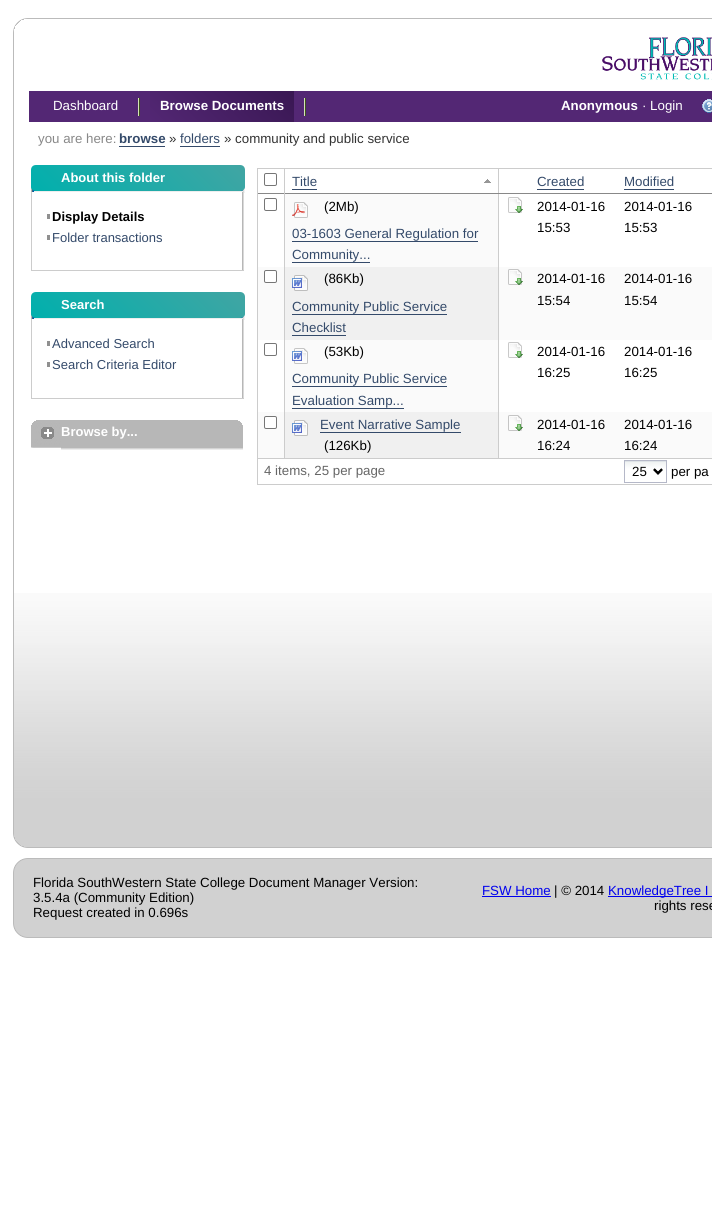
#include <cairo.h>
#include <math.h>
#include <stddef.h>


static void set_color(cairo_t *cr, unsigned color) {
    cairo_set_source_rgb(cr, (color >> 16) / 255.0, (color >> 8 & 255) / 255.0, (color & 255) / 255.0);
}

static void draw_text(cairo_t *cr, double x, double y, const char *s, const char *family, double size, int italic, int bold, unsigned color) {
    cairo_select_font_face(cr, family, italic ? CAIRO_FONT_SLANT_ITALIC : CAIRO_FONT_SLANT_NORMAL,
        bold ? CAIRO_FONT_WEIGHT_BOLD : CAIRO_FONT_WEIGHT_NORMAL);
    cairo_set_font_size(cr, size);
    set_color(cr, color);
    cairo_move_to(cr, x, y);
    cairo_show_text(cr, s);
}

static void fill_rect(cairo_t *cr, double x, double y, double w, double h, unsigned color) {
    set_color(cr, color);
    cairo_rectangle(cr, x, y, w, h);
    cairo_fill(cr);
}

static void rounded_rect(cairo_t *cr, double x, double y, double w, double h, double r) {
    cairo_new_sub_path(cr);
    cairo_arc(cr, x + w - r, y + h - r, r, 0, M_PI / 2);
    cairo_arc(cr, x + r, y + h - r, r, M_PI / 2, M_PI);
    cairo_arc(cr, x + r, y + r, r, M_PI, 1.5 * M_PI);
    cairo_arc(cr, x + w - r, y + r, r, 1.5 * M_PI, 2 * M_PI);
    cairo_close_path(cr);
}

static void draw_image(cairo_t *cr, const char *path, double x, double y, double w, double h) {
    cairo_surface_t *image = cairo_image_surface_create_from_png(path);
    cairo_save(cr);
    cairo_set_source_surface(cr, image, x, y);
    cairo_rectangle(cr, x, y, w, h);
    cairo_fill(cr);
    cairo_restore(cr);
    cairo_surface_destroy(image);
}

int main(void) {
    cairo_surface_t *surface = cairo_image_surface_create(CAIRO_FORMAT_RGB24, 712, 1220);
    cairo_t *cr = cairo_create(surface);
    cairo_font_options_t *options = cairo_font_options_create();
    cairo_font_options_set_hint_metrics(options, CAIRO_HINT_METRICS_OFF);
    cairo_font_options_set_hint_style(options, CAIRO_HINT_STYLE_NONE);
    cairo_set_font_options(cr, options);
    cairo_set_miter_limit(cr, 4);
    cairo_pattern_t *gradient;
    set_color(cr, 0xFFFFFF);
    cairo_paint(cr);
    draw_image(cr, "assets/img1.png", 14, 593, 698, 240);
    fill_rect(cr, 13, 33, 1, 800, 0xBBBBBB);
    fill_rect(cr, 23, 18, 1, 1, 0xEBEBEB);
    fill_rect(cr, 24, 18, 1, 1, 0xD8D8D8);
    fill_rect(cr, 25, 18, 1, 1, 0xCACACA);
    fill_rect(cr, 26, 18, 1, 1, 0xC1C1C1);
    fill_rect(cr, 27, 18, 1, 1, 0xBCBCBC);
    fill_rect(cr, 20, 19, 1, 1, 0xFBFBFB);
    fill_rect(cr, 21, 19, 1, 1, 0xDDDDDD);
    fill_rect(cr, 22, 19, 2, 1, 0xBBBBBB);
    fill_rect(cr, 19, 20, 1, 1, 0xE8E8E8);
    fill_rect(cr, 20, 20, 1, 1, 0xBBBBBB);
    fill_rect(cr, 18, 21, 1, 1, 0xD7D7D7);
    fill_rect(cr, 19, 21, 1, 1, 0xBBBBBB);
    fill_rect(cr, 17, 22, 1, 1, 0xD1D1D1);
    fill_rect(cr, 18, 22, 1, 1, 0xBBBBBB);
    fill_rect(cr, 16, 23, 1, 1, 0xD7D7D7);
    fill_rect(cr, 17, 23, 1, 1, 0xBBBBBB);
    fill_rect(cr, 15, 24, 1, 1, 0xE8E8E8);
    fill_rect(cr, 16, 24, 1, 1, 0xBBBBBB);
    fill_rect(cr, 14, 25, 1, 1, 0xFBFBFB);
    fill_rect(cr, 15, 25, 1, 1, 0xBBBBBB);
    fill_rect(cr, 14, 26, 1, 1, 0xDDDDDD);
    fill_rect(cr, 13, 28, 1, 1, 0xEBEBEB);
    fill_rect(cr, 14, 27, 1, 2, 0xBBBBBB);
    fill_rect(cr, 13, 29, 1, 1, 0xD8D8D8);
    fill_rect(cr, 13, 30, 1, 1, 0xCACACA);
    fill_rect(cr, 13, 31, 1, 1, 0xC1C1C1);
    fill_rect(cr, 13, 32, 1, 1, 0xBCBCBC);
    fill_rect(cr, 28, 18, 684, 1, 0xBBBBBB);
    draw_image(cr, "assets/img2.png", 602, 37, 110, 43);
    fill_rect(cr, 29, 91, 683, 31, 0x532774);
    draw_text(cr, 53, 110, "Dashboard", "Liberation Sans", 13.3, 0, 0, 0xFFFFFF);
    draw_image(cr, "assets/img3.png", 138, 98, 2, 18);
    gradient = cairo_pattern_create_linear(178, 151, 266, 63);
    cairo_pattern_add_color_stop_rgba(gradient, 0, 0.325, 0.153, 0.455, 1);
    cairo_pattern_add_color_stop_rgba(gradient, 1, 0.224, 0.09, 0.325, 1);
    cairo_set_source(cr, gradient);
    cairo_pattern_destroy(gradient);
    cairo_rectangle(cr, 150, 91, 144, 31);
    cairo_fill(cr);
    draw_text(cr, 160, 110, "Browse Documents", "Liberation Sans", 13.3, 0, 1, 0xFFFFFF);
    draw_image(cr, "assets/img3.png", 304, 98, 2, 18);
    draw_text(cr, 561, 110, "Anonymous", "Liberation Sans", 13.3, 0, 1, 0xFFFFFF);
    draw_text(cr, 642, 110, "· Login", "Liberation Sans", 13.3, 0, 0, 0xFFFFFF);
    draw_image(cr, "assets/img4.png", 702, 99, 10, 14);
    draw_text(cr, 38, 143, "you are here:", "Liberation Sans", 13.3, 0, 0, 0x888888);
    draw_text(cr, 119, 143, "browse", "Liberation Sans", 13.3, 0, 1, 0x344A6A);
    fill_rect(cr, 119, 146, 46, 1, 0x344A6A);
    draw_text(cr, 169, 143, "»", "Liberation Sans", 13.3, 0, 0, 0x333333);
    draw_text(cr, 180, 143, "folders", "Liberation Sans", 13.3, 0, 0, 0x344A6A);
    fill_rect(cr, 180, 146, 40, 1, 0x344A6A);
    draw_text(cr, 224, 143, "» community and public service", "Liberation Sans", 13.3, 0, 0, 0x333333);
    draw_image(cr, "assets/img5.png", 31, 187, 5, 5);
    draw_image(cr, "assets/img6.png", 240, 187, 5, 6);
    gradient = cairo_pattern_create_linear(78, 238, 198, 118);
    cairo_pattern_add_color_stop_rgba(gradient, 0, 0, 0.69, 0.678, 1);
    cairo_pattern_add_color_stop_rgba(gradient, 1, 0.255, 0.647, 0.639, 1);
    cairo_set_source(cr, gradient);
    cairo_pattern_destroy(gradient);
    cairo_new_path(cr);
    cairo_move_to(cr, 36, 165);
    cairo_line_to(cr, 240, 165);
    cairo_curve_to(cr, 243, 165, 245, 167, 245, 170);
    cairo_line_to(cr, 245, 187);
    cairo_curve_to(cr, 245, 189, 243, 191, 240, 191);
    cairo_line_to(cr, 36, 191);
    cairo_curve_to(cr, 33, 191, 31, 189, 31, 187);
    cairo_line_to(cr, 31, 170);
    cairo_curve_to(cr, 31, 167, 33, 165, 36, 165);
    cairo_close_path(cr);
    cairo_fill(cr);
    fill_rect(cr, 34, 191, 209, 1, 0xEEEEEE);
    draw_text(cr, 61, 182, "About this folder", "Liberation Sans", 13, 0, 1, 0xFFFFFF);
    fill_rect(cr, 240, 192, 2, 1, 0xFFFFFF);
    draw_image(cr, "assets/img7.png", 242, 192, 2, 78);
    fill_rect(cr, 31, 270, 213, 1, 0xCCCCCC);
    fill_rect(cr, 31, 192, 1, 79, 0xCCCCCC);
    fill_rect(cr, 47, 214, 3, 5, 0x909090);
    draw_text(cr, 52, 221, "Display Details", "Liberation Sans", 13, 0, 1, 0x000000);
    fill_rect(cr, 47, 235, 3, 5, 0x909090);
    draw_text(cr, 52, 242, "Folder transactions", "Liberation Sans", 13, 0, 0, 0x344A6A);
    draw_image(cr, "assets/img5.png", 31, 314, 5, 5);
    draw_image(cr, "assets/img6.png", 240, 314, 5, 6);
    gradient = cairo_pattern_create_linear(78, 365, 198, 245);
    cairo_pattern_add_color_stop_rgba(gradient, 0, 0, 0.69, 0.678, 1);
    cairo_pattern_add_color_stop_rgba(gradient, 1, 0.255, 0.647, 0.639, 1);
    cairo_set_source(cr, gradient);
    cairo_pattern_destroy(gradient);
    cairo_new_path(cr);
    cairo_move_to(cr, 36, 292);
    cairo_line_to(cr, 240, 292);
    cairo_curve_to(cr, 243, 292, 245, 294, 245, 297);
    cairo_line_to(cr, 245, 314);
    cairo_curve_to(cr, 245, 316, 243, 318, 240, 318);
    cairo_line_to(cr, 36, 318);
    cairo_curve_to(cr, 33, 318, 31, 316, 31, 314);
    cairo_line_to(cr, 31, 297);
    cairo_curve_to(cr, 31, 294, 33, 292, 36, 292);
    cairo_close_path(cr);
    cairo_fill(cr);
    fill_rect(cr, 34, 318, 209, 1, 0xEEEEEE);
    draw_text(cr, 61, 309, "Search", "Liberation Sans", 13, 0, 1, 0xFFFFFF);
    fill_rect(cr, 240, 319, 2, 1, 0xFFFFFF);
    draw_image(cr, "assets/img8.png", 242, 319, 2, 79);
    fill_rect(cr, 31, 398, 213, 1, 0xCCCCCC);
    fill_rect(cr, 31, 319, 1, 80, 0xCCCCCC);
    fill_rect(cr, 47, 341, 3, 5, 0x909090);
    draw_text(cr, 52, 348, "Advanced Search", "Liberation Sans", 13, 0, 0, 0x344A6A);
    fill_rect(cr, 47, 362, 3, 5, 0x909090);
    draw_text(cr, 52, 369, "Search Criteria Editor", "Liberation Sans", 13, 0, 0, 0x344A6A);
    draw_image(cr, "assets/img9.png", 31, 420, 30, 28);
    draw_image(cr, "assets/img10.png", 61, 420, 171, 30);
    draw_image(cr, "assets/img11.png", 232, 420, 11, 30);
    draw_image(cr, "assets/img12.png", 41, 427, 13, 12);
    draw_text(cr, 61, 436, "Browse by...", "Liberation Sans", 13, 0, 1, 0xFFFFFF);
    cairo_rectangle(cr, 257.5, 168.5, 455, 316);
    set_color(cr, 0xCCCCCC);
    cairo_set_line_width(cr, 1);
    cairo_stroke(cr);
    fill_rect(cr, 258, 193, 26, 1, 0x888888);
    rounded_rect(cr, 264.5, 173.5, 12, 12, 1.5);
    set_color(cr, 0x767676);
    cairo_stroke(cr);
    draw_image(cr, "assets/img13.png", 484, 179, 7, 4);
    fill_rect(cr, 498, 169, 1, 289, 0xCCCCCC);
    fill_rect(cr, 284, 193, 428, 1, 0x888888);
    fill_rect(cr, 284, 169, 1, 289, 0xCCCCCC);
    draw_text(cr, 292, 186, "Title", "Liberation Sans", 13.3, 0, 0, 0x344A6A);
    fill_rect(cr, 292, 189, 25, 1, 0x344A6A);
    draw_text(cr, 537, 186, "Created", "Liberation Sans", 13.3, 0, 0, 0x344A6A);
    fill_rect(cr, 537, 189, 47, 1, 0x344A6A);
    draw_text(cr, 624, 186, "Modified", "Liberation Sans", 13.3, 0, 0, 0x344A6A);
    fill_rect(cr, 624, 189, 50, 1, 0x344A6A);
    rounded_rect(cr, 264.5, 198.5, 12, 12, 1.5);
    set_color(cr, 0x767676);
    cairo_stroke(cr);
    fill_rect(cr, 285, 194, 213, 73, 0xFAFAFA);
    draw_image(cr, "assets/img14.png", 292, 202, 16, 16);
    draw_text(cr, 324, 211, "(2Mb)", "Liberation Sans", 13.3, 0, 0, 0x000000);
    draw_text(cr, 292, 238, "03-1603 General Regulation for", "Liberation Sans", 13.3, 0, 0, 0x344A6A);
    fill_rect(cr, 292, 241, 186, 1, 0x344A6A);
    draw_text(cr, 292, 259, "Community...", "Liberation Sans", 13.3, 0, 0, 0x344A6A);
    fill_rect(cr, 292, 262, 78, 1, 0x344A6A);
    draw_image(cr, "assets/img15.png", 508, 197, 15, 16);
    draw_text(cr, 537, 211, "2014-01-16", "Liberation Sans", 13.3, 0, 0, 0x000000);
    draw_text(cr, 537, 232, "15:53", "Liberation Sans", 13.3, 0, 0, 0x000000);
    draw_text(cr, 624, 211, "2014-01-16", "Liberation Sans", 13.3, 0, 0, 0x000000);
    draw_text(cr, 624, 232, "15:53", "Liberation Sans", 13.3, 0, 0, 0x000000);
    fill_rect(cr, 258, 267, 26, 73, 0xFAFAFA);
    set_color(cr, 0xFFFFFF);
    rounded_rect(cr, 264.5, 270.5, 12, 12, 1.5);
    cairo_fill_preserve(cr);
    set_color(cr, 0x767676);
    cairo_stroke(cr);
    fill_rect(cr, 285, 267, 213, 73, 0xF0F0F0);
    draw_image(cr, "assets/img16.png", 292, 275, 16, 16);
    draw_text(cr, 324, 283, "(86Kb)", "Liberation Sans", 13.3, 0, 0, 0x000000);
    draw_text(cr, 292, 311, "Community Public Service", "Liberation Sans", 13.3, 0, 0, 0x344A6A);
    fill_rect(cr, 292, 314, 155, 1, 0x344A6A);
    draw_text(cr, 292, 332, "Checklist", "Liberation Sans", 13.3, 0, 0, 0x344A6A);
    fill_rect(cr, 292, 335, 54, 1, 0x344A6A);
    fill_rect(cr, 499, 267, 213, 73, 0xFAFAFA);
    draw_image(cr, "assets/img17.png", 508, 269, 15, 16);
    draw_text(cr, 537, 283, "2014-01-16", "Liberation Sans", 13.3, 0, 0, 0x000000);
    draw_text(cr, 537, 305, "15:54", "Liberation Sans", 13.3, 0, 0, 0x000000);
    draw_text(cr, 624, 283, "2014-01-16", "Liberation Sans", 13.3, 0, 0, 0x000000);
    draw_text(cr, 624, 305, "15:54", "Liberation Sans", 13.3, 0, 0, 0x000000);
    rounded_rect(cr, 264.5, 343.5, 12, 12, 1.5);
    set_color(cr, 0x767676);
    cairo_stroke(cr);
    fill_rect(cr, 285, 340, 213, 72, 0xFAFAFA);
    draw_image(cr, "assets/img18.png", 292, 348, 16, 16);
    draw_text(cr, 324, 356, "(53Kb)", "Liberation Sans", 13.3, 0, 0, 0x000000);
    draw_text(cr, 292, 383, "Community Public Service", "Liberation Sans", 13.3, 0, 0, 0x344A6A);
    fill_rect(cr, 292, 386, 155, 1, 0x344A6A);
    draw_text(cr, 292, 405, "Evaluation Samp...", "Liberation Sans", 13.3, 0, 0, 0x344A6A);
    fill_rect(cr, 292, 408, 112, 1, 0x344A6A);
    draw_image(cr, "assets/img15.png", 508, 342, 15, 16);
    draw_text(cr, 537, 356, "2014-01-16", "Liberation Sans", 13.3, 0, 0, 0x000000);
    draw_text(cr, 537, 377, "16:25", "Liberation Sans", 13.3, 0, 0, 0x000000);
    draw_text(cr, 624, 356, "2014-01-16", "Liberation Sans", 13.3, 0, 0, 0x000000);
    draw_text(cr, 624, 377, "16:25", "Liberation Sans", 13.3, 0, 0, 0x000000);
    fill_rect(cr, 258, 412, 26, 46, 0xFAFAFA);
    set_color(cr, 0xFFFFFF);
    rounded_rect(cr, 264.5, 416.5, 12, 12, 1.5);
    cairo_fill_preserve(cr);
    set_color(cr, 0x767676);
    cairo_stroke(cr);
    fill_rect(cr, 285, 412, 213, 46, 0xF0F0F0);
    draw_image(cr, "assets/img16.png", 292, 420, 16, 16);
    draw_text(cr, 320, 429, "Event Narrative Sample", "Liberation Sans", 13.3, 0, 0, 0x344A6A);
    fill_rect(cr, 320, 432, 141, 1, 0x344A6A);
    draw_text(cr, 324, 450, "(126Kb)", "Liberation Sans", 13.3, 0, 0, 0x000000);
    fill_rect(cr, 499, 412, 213, 46, 0xFAFAFA);
    draw_image(cr, "assets/img17.png", 508, 415, 15, 16);
    draw_text(cr, 537, 429, "2014-01-16", "Liberation Sans", 13.3, 0, 0, 0x000000);
    draw_text(cr, 537, 450, "16:24", "Liberation Sans", 13.3, 0, 0, 0x000000);
    draw_text(cr, 624, 429, "2014-01-16", "Liberation Sans", 13.3, 0, 0, 0x000000);
    draw_text(cr, 624, 450, "16:24", "Liberation Sans", 13.3, 0, 0, 0x000000);
    fill_rect(cr, 258, 458, 454, 1, 0xCCCCCC);
    draw_text(cr, 264, 475, "4 items, 25 per page", "Liberation Sans", 13.3, 0, 0, 0x666666);
    draw_image(cr, "assets/img19.png", 625, 461, 41, 14);
    cairo_rectangle(cr, 624.5, 460.5, 42, 22);
    set_color(cr, 0xB5B8C8);
    cairo_stroke(cr);
    cairo_new_path(cr);
    cairo_move_to(cr, 654, 469.5);
    cairo_line_to(cr, 658, 473.5);
    cairo_line_to(cr, 662, 469.5);
    set_color(cr, 0x000000);
    cairo_set_line_width(cr, 2);
    cairo_stroke(cr);
    draw_text(cr, 632, 476, "25", "Liberation Sans", 13.3, 0, 0, 0x000000);
    draw_text(cr, 671, 476, "per pa", "Liberation Sans", 13.3, 0, 0, 0x000000);
    fill_rect(cr, 13, 833, 1, 1, 0xBCBCBC);
    fill_rect(cr, 14, 833, 1, 4, 0xD1D1D1);
    fill_rect(cr, 15, 833, 1, 7, 0xD1D1D1);
    fill_rect(cr, 16, 833, 1, 8, 0xD1D1D1);
    fill_rect(cr, 17, 833, 1, 9, 0xD1D1D1);
    fill_rect(cr, 18, 833, 1, 10, 0xD1D1D1);
    fill_rect(cr, 19, 833, 1, 11, 0xD1D1D1);
    fill_rect(cr, 20, 833, 1, 12, 0xD1D1D1);
    fill_rect(cr, 21, 833, 1, 13, 0xD1D1D1);
    fill_rect(cr, 22, 833, 1, 13, 0xD1D1D1);
    fill_rect(cr, 23, 833, 1, 13, 0xD1D1D1);
    fill_rect(cr, 24, 833, 1, 14, 0xD1D1D1);
    fill_rect(cr, 25, 833, 1, 14, 0xD1D1D1);
    fill_rect(cr, 26, 833, 1, 14, 0xD1D1D1);
    fill_rect(cr, 27, 833, 685, 14, 0xD1D1D1);
    fill_rect(cr, 13, 834, 1, 1, 0xC1C1C1);
    fill_rect(cr, 13, 835, 1, 1, 0xCACACA);
    fill_rect(cr, 13, 836, 1, 1, 0xD8D8D8);
    fill_rect(cr, 13, 837, 1, 1, 0xEBEBEB);
    fill_rect(cr, 14, 837, 1, 2, 0xBBBBBB);
    fill_rect(cr, 14, 839, 1, 1, 0xDDDDDD);
    fill_rect(cr, 14, 840, 1, 1, 0xFBFBFB);
    fill_rect(cr, 15, 840, 1, 1, 0xBBBBBB);
    fill_rect(cr, 15, 841, 1, 1, 0xE8E8E8);
    fill_rect(cr, 16, 841, 1, 1, 0xBBBBBB);
    fill_rect(cr, 16, 842, 1, 1, 0xD7D7D7);
    fill_rect(cr, 17, 842, 1, 1, 0xBBBBBB);
    fill_rect(cr, 17, 843, 1, 1, 0xD1D1D1);
    fill_rect(cr, 18, 843, 1, 1, 0xBBBBBB);
    fill_rect(cr, 18, 844, 1, 1, 0xD7D7D7);
    fill_rect(cr, 19, 844, 1, 1, 0xBBBBBB);
    fill_rect(cr, 19, 845, 1, 1, 0xE8E8E8);
    fill_rect(cr, 20, 845, 1, 1, 0xBBBBBB);
    fill_rect(cr, 20, 846, 1, 1, 0xFBFBFB);
    fill_rect(cr, 21, 846, 1, 1, 0xDDDDDD);
    fill_rect(cr, 22, 846, 2, 1, 0xBBBBBB);
    fill_rect(cr, 23, 847, 1, 1, 0xEBEBEB);
    fill_rect(cr, 24, 847, 1, 1, 0xD8D8D8);
    fill_rect(cr, 25, 847, 1, 1, 0xCACACA);
    fill_rect(cr, 26, 847, 1, 1, 0xC1C1C1);
    fill_rect(cr, 27, 847, 1, 1, 0xBCBCBC);
    fill_rect(cr, 28, 847, 684, 1, 0xBBBBBB);
    fill_rect(cr, 14, 873, 698, 50, 0xD1D1D1);
    fill_rect(cr, 13, 873, 1, 50, 0xBBBBBB);
    fill_rect(cr, 23, 858, 1, 1, 0xEBEBEB);
    fill_rect(cr, 24, 858, 1, 1, 0xD8D8D8);
    fill_rect(cr, 25, 858, 1, 1, 0xCACACA);
    fill_rect(cr, 26, 858, 1, 1, 0xC1C1C1);
    fill_rect(cr, 27, 858, 1, 1, 0xBCBCBC);
    fill_rect(cr, 19, 860, 1, 1, 0xE8E8E8);
    fill_rect(cr, 20, 859, 1, 1, 0xFBFBFB);
    fill_rect(cr, 21, 859, 1, 1, 0xDDDDDD);
    fill_rect(cr, 22, 859, 1, 1, 0xBBBBBB);
    fill_rect(cr, 23, 859, 1, 1, 0xC0C0C0);
    fill_rect(cr, 24, 859, 1, 1, 0xC7C7C7);
    fill_rect(cr, 25, 859, 1, 1, 0xCCCCCC);
    fill_rect(cr, 26, 859, 1, 1, 0xCFCFCF);
    fill_rect(cr, 27, 859, 685, 14, 0xD1D1D1);
    fill_rect(cr, 18, 861, 1, 1, 0xD7D7D7);
    fill_rect(cr, 19, 861, 1, 1, 0xBFBFBF);
    fill_rect(cr, 20, 860, 1, 1, 0xBBBBBB);
    fill_rect(cr, 21, 860, 1, 1, 0xC4C4C4);
    fill_rect(cr, 22, 860, 1, 1, 0xCECECE);
    fill_rect(cr, 23, 860, 4, 13, 0xD1D1D1);
    fill_rect(cr, 17, 862, 1, 1, 0xD1D1D1);
    fill_rect(cr, 18, 862, 1, 1, 0xC1C1C1);
    fill_rect(cr, 19, 862, 1, 1, 0xD0D0D0);
    fill_rect(cr, 20, 861, 1, 1, 0xCDCDCD);
    fill_rect(cr, 21, 861, 2, 12, 0xD1D1D1);
    fill_rect(cr, 15, 864, 1, 1, 0xE8E8E8);
    fill_rect(cr, 16, 863, 1, 1, 0xD7D7D7);
    fill_rect(cr, 17, 863, 1, 1, 0xC1C1C1);
    fill_rect(cr, 18, 863, 1, 10, 0xD1D1D1);
    fill_rect(cr, 19, 863, 1, 10, 0xD1D1D1);
    fill_rect(cr, 20, 862, 1, 11, 0xD1D1D1);
    fill_rect(cr, 16, 864, 1, 1, 0xBFBFBF);
    fill_rect(cr, 17, 864, 1, 1, 0xD0D0D0);
    fill_rect(cr, 14, 865, 1, 1, 0xFBFBFB);
    fill_rect(cr, 15, 865, 1, 1, 0xBBBBBB);
    fill_rect(cr, 16, 865, 1, 1, 0xCDCDCD);
    fill_rect(cr, 17, 865, 1, 8, 0xD1D1D1);
    fill_rect(cr, 14, 866, 1, 1, 0xDDDDDD);
    fill_rect(cr, 15, 866, 1, 1, 0xC4C4C4);
    fill_rect(cr, 16, 866, 1, 7, 0xD1D1D1);
    fill_rect(cr, 14, 867, 1, 1, 0xBBBBBB);
    fill_rect(cr, 15, 867, 1, 1, 0xCECECE);
    fill_rect(cr, 13, 868, 1, 1, 0xEBEBEB);
    fill_rect(cr, 14, 868, 1, 1, 0xC0C0C0);
    fill_rect(cr, 15, 868, 1, 5, 0xD1D1D1);
    fill_rect(cr, 13, 869, 1, 1, 0xD8D8D8);
    fill_rect(cr, 14, 869, 1, 1, 0xC7C7C7);
    fill_rect(cr, 13, 870, 1, 1, 0xCACACA);
    fill_rect(cr, 14, 870, 1, 1, 0xCCCCCC);
    fill_rect(cr, 13, 871, 1, 1, 0xC1C1C1);
    fill_rect(cr, 14, 871, 1, 1, 0xCFCFCF);
    fill_rect(cr, 13, 872, 1, 1, 0xBCBCBC);
    fill_rect(cr, 14, 872, 1, 1, 0xD1D1D1);
    fill_rect(cr, 28, 858, 684, 1, 0xBBBBBB);
    draw_text(cr, 33, 887, "Florida SouthWestern State College Document Manager Version:", "Liberation Sans", 13.3, 0, 0, 0x000000);
    draw_text(cr, 33, 902, "3.5.4a (Community Edition)", "Liberation Sans", 13.3, 0, 0, 0x000000);
    draw_text(cr, 33, 917, "Request created in 0.696s", "Liberation Sans", 13.3, 0, 0, 0x000000);
    draw_text(cr, 482, 895, "FSW Home", "Liberation Sans", 13.3, 0, 0, 0x0000EE);
    fill_rect(cr, 482, 896, 69, 1, 0x0000EE);
    draw_text(cr, 554, 895, "| © 2014", "Liberation Sans", 13.3, 0, 0, 0x000000);
    fill_rect(cr, 608, 896, 104, 1, 0x0000EE);
    draw_text(cr, 608, 895, "KnowledgeTree I", "Liberation Sans", 13.3, 0, 0, 0x0000EE);
    draw_text(cr, 654, 910, "rights rese", "Liberation Sans", 13.3, 0, 0, 0x000000);
    fill_rect(cr, 13, 923, 1, 1, 0xBCBCBC);
    fill_rect(cr, 14, 923, 1, 1, 0xD1D1D1);
    fill_rect(cr, 15, 923, 1, 5, 0xD1D1D1);
    fill_rect(cr, 16, 923, 1, 7, 0xD1D1D1);
    fill_rect(cr, 17, 923, 1, 8, 0xD1D1D1);
    fill_rect(cr, 18, 923, 1, 10, 0xD1D1D1);
    fill_rect(cr, 19, 923, 1, 10, 0xD1D1D1);
    fill_rect(cr, 20, 923, 1, 11, 0xD1D1D1);
    fill_rect(cr, 21, 923, 2, 12, 0xD1D1D1);
    fill_rect(cr, 23, 923, 4, 13, 0xD1D1D1);
    fill_rect(cr, 27, 923, 685, 14, 0xD1D1D1);
    fill_rect(cr, 13, 924, 1, 1, 0xC1C1C1);
    fill_rect(cr, 14, 924, 1, 1, 0xCFCFCF);
    fill_rect(cr, 13, 925, 1, 1, 0xCACACA);
    fill_rect(cr, 14, 925, 1, 1, 0xCCCCCC);
    fill_rect(cr, 13, 926, 1, 1, 0xD8D8D8);
    fill_rect(cr, 14, 926, 1, 1, 0xC7C7C7);
    fill_rect(cr, 13, 927, 1, 1, 0xEBEBEB);
    fill_rect(cr, 14, 927, 1, 1, 0xC0C0C0);
    fill_rect(cr, 14, 928, 1, 1, 0xBBBBBB);
    fill_rect(cr, 15, 928, 1, 1, 0xCECECE);
    fill_rect(cr, 14, 929, 1, 1, 0xDDDDDD);
    fill_rect(cr, 15, 929, 1, 1, 0xC4C4C4);
    fill_rect(cr, 14, 930, 1, 1, 0xFBFBFB);
    fill_rect(cr, 15, 930, 1, 1, 0xBBBBBB);
    fill_rect(cr, 16, 930, 1, 1, 0xCDCDCD);
    fill_rect(cr, 15, 931, 1, 1, 0xE8E8E8);
    fill_rect(cr, 16, 931, 1, 1, 0xBFBFBF);
    fill_rect(cr, 17, 931, 1, 1, 0xD0D0D0);
    fill_rect(cr, 16, 932, 1, 1, 0xD7D7D7);
    fill_rect(cr, 17, 932, 1, 1, 0xC1C1C1);
    fill_rect(cr, 17, 933, 1, 1, 0xD1D1D1);
    fill_rect(cr, 18, 933, 1, 1, 0xC1C1C1);
    fill_rect(cr, 19, 933, 1, 1, 0xD0D0D0);
    fill_rect(cr, 18, 934, 1, 1, 0xD7D7D7);
    fill_rect(cr, 19, 934, 1, 1, 0xBFBFBF);
    fill_rect(cr, 20, 934, 1, 1, 0xCDCDCD);
    fill_rect(cr, 19, 935, 1, 1, 0xE8E8E8);
    fill_rect(cr, 20, 935, 1, 1, 0xBBBBBB);
    fill_rect(cr, 21, 935, 1, 1, 0xC4C4C4);
    fill_rect(cr, 22, 935, 1, 1, 0xCECECE);
    fill_rect(cr, 20, 936, 1, 1, 0xFBFBFB);
    fill_rect(cr, 21, 936, 1, 1, 0xDDDDDD);
    fill_rect(cr, 22, 936, 1, 1, 0xBBBBBB);
    fill_rect(cr, 23, 936, 1, 1, 0xC0C0C0);
    fill_rect(cr, 24, 936, 1, 1, 0xC7C7C7);
    fill_rect(cr, 25, 936, 1, 1, 0xCCCCCC);
    fill_rect(cr, 26, 936, 1, 1, 0xCFCFCF);
    fill_rect(cr, 23, 937, 1, 1, 0xEBEBEB);
    fill_rect(cr, 24, 937, 1, 1, 0xD8D8D8);
    fill_rect(cr, 25, 937, 1, 1, 0xCACACA);
    fill_rect(cr, 26, 937, 1, 1, 0xC1C1C1);
    fill_rect(cr, 27, 937, 1, 1, 0xBCBCBC);
    fill_rect(cr, 28, 937, 684, 1, 0xBBBBBB);
    cairo_surface_write_to_png(surface, "output.png");
    cairo_font_options_destroy(options);
    cairo_destroy(cr);
    cairo_surface_destroy(surface);
    return 0;
}
